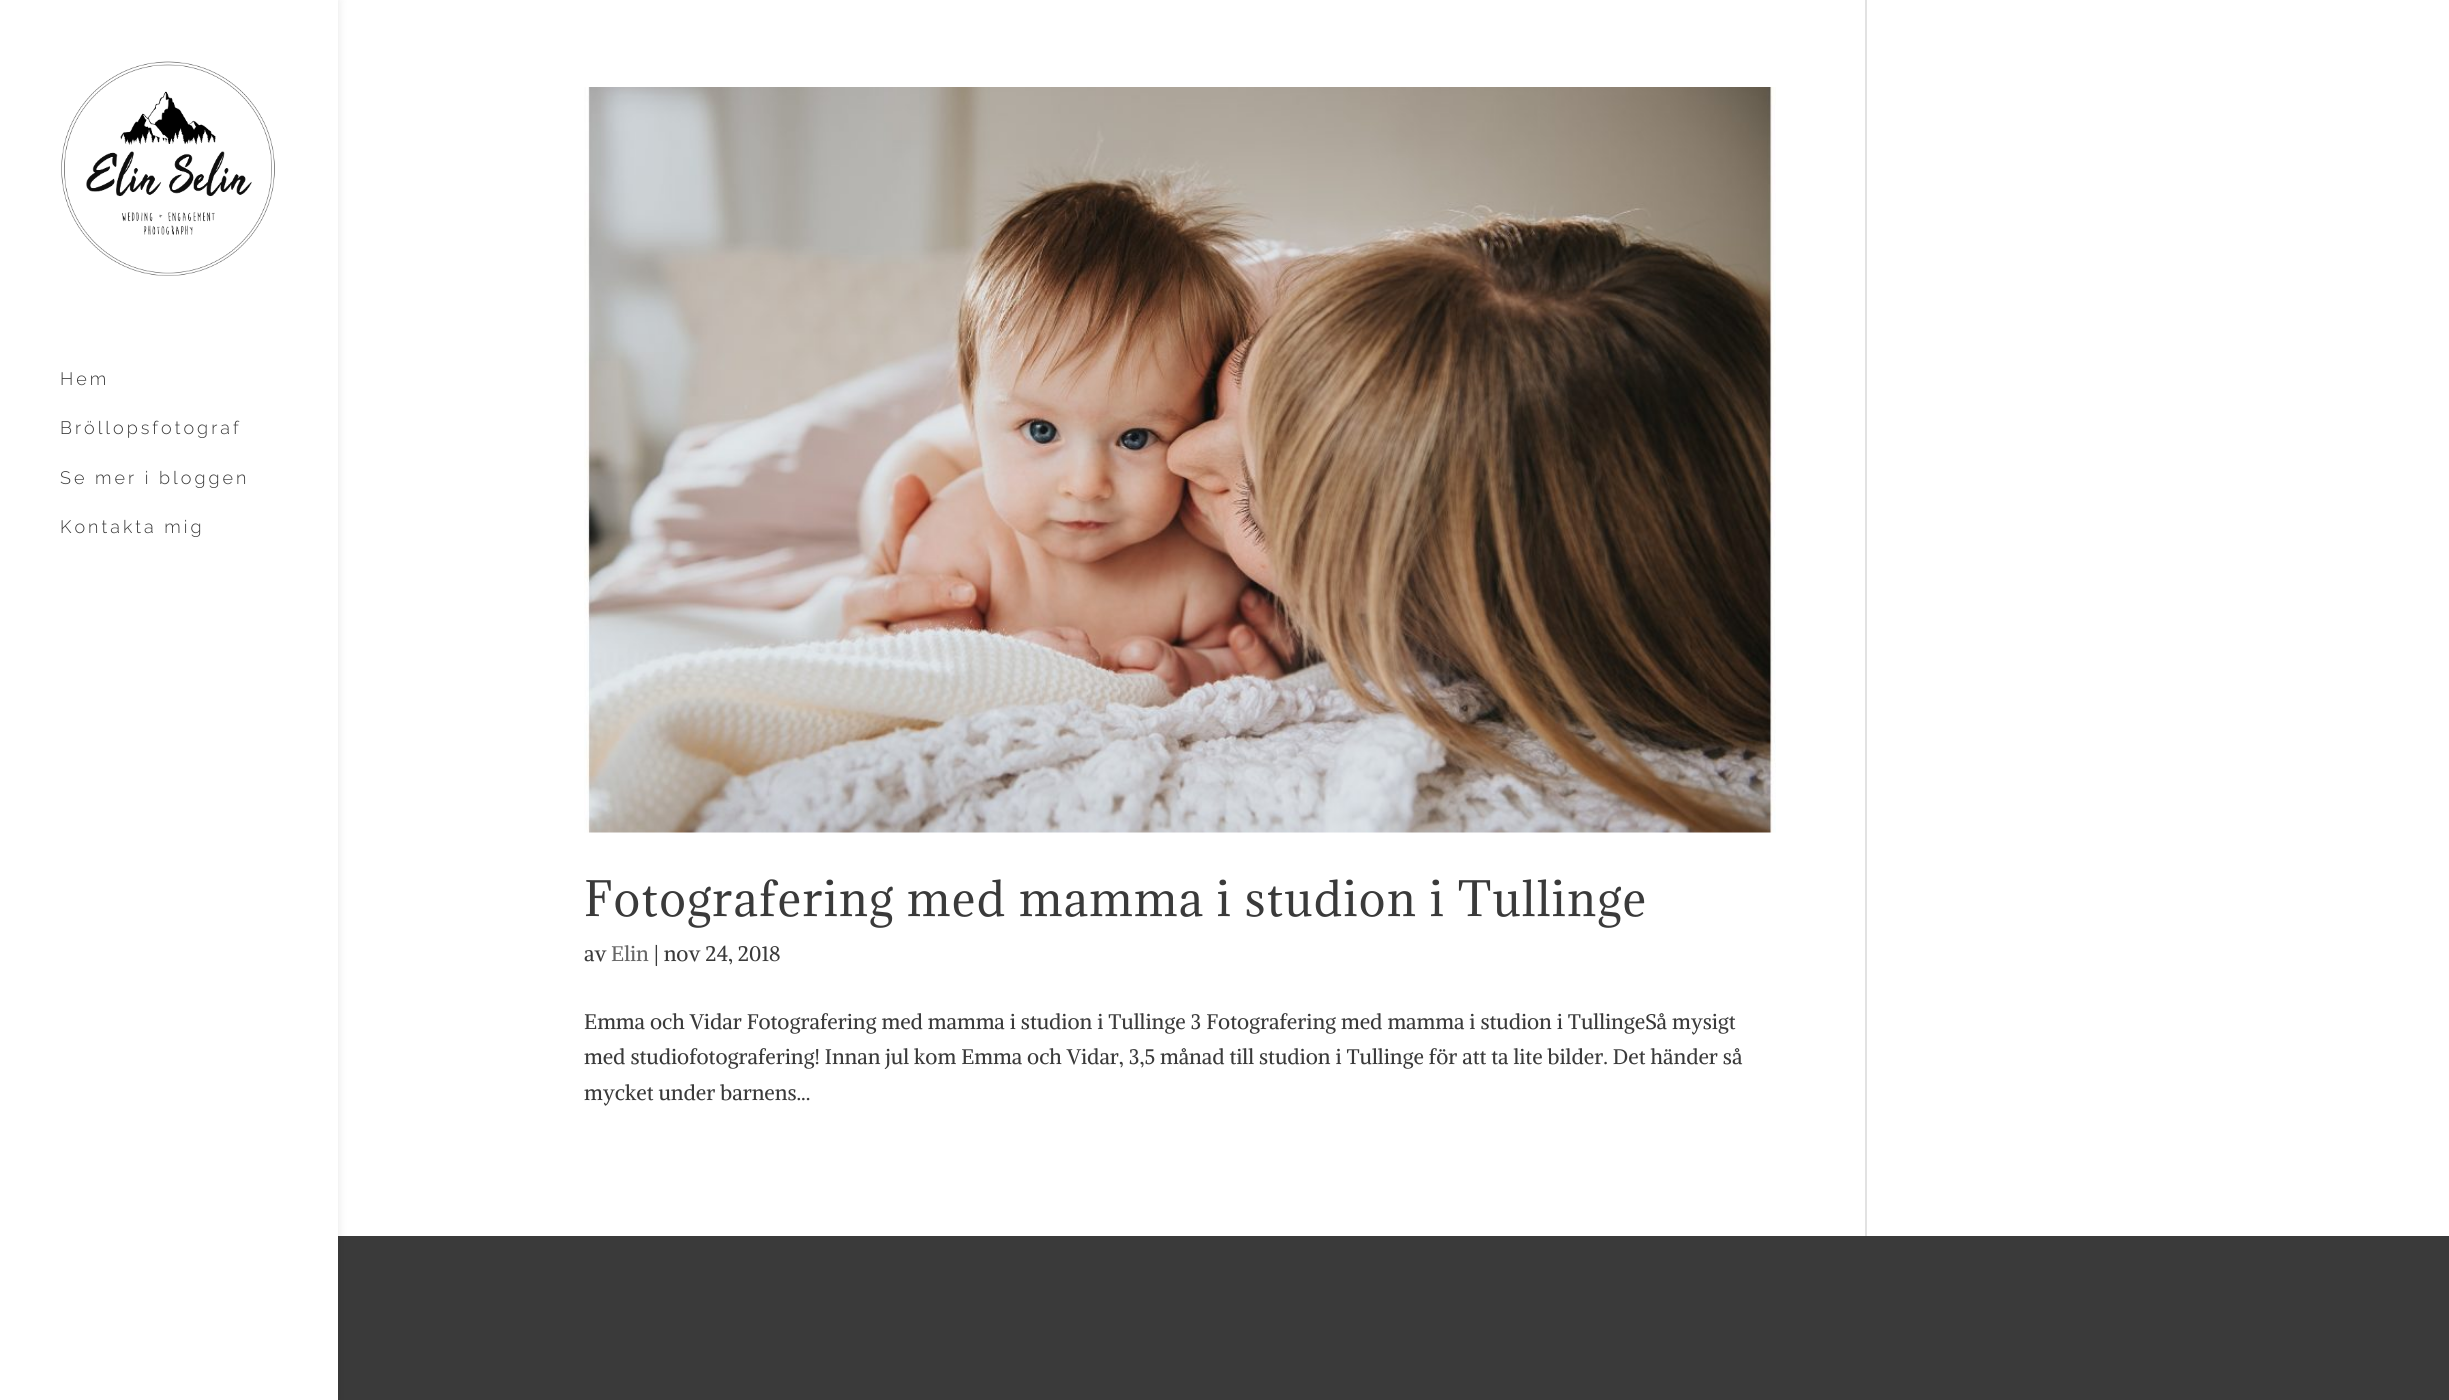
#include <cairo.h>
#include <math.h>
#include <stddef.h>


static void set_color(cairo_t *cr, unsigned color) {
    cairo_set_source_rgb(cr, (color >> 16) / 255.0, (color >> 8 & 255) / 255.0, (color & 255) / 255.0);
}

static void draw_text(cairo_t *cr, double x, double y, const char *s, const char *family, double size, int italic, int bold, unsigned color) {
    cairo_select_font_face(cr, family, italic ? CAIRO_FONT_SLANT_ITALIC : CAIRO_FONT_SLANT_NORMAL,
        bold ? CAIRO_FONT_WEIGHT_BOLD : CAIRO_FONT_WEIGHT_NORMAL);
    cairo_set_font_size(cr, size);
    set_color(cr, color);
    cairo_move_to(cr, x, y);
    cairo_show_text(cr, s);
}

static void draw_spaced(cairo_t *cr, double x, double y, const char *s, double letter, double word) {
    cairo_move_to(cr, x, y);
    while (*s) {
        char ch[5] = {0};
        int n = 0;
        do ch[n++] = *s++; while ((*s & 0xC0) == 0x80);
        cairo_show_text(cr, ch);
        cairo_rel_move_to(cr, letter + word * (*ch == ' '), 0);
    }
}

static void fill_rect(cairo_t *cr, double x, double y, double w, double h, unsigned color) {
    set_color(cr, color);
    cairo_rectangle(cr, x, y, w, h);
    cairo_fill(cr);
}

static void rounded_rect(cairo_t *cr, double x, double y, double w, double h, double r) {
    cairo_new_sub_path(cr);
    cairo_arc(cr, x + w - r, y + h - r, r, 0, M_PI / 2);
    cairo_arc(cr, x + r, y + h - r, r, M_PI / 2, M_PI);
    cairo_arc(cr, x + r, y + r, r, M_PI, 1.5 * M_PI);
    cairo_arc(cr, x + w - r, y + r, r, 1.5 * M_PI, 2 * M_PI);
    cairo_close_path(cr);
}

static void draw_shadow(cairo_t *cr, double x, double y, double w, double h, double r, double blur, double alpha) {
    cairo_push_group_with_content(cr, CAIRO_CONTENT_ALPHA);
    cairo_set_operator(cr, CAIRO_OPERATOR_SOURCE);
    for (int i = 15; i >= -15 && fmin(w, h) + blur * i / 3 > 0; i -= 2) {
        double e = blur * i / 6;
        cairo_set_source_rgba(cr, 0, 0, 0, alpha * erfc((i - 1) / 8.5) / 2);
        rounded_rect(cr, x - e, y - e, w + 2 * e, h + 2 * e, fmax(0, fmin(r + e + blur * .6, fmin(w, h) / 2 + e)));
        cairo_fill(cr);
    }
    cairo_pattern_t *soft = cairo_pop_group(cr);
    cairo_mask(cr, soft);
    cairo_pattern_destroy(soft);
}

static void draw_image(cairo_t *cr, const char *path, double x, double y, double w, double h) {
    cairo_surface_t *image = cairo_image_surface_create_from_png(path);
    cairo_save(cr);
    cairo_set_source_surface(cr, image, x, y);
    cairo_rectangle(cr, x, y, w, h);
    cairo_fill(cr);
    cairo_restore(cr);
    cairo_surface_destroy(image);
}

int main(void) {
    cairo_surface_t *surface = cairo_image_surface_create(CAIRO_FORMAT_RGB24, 2449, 1400);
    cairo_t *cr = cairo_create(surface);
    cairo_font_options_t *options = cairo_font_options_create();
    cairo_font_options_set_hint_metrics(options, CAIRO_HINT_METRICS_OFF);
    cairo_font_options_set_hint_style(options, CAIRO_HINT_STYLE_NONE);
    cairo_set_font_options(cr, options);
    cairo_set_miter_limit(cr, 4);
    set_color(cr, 0xFFFFFF);
    cairo_paint(cr);
    fill_rect(cr, 338, 1236, 2111, 164, 0x3A3A3A);
    set_color(cr, 0x000000);
    draw_shadow(cr, 0, 0, 338, 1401, 0, 5, 0.1);
    fill_rect(cr, 0, 0, 338, 1400, 0xFFFFFF);
    draw_image(cr, "assets/img1.png", 61, 61, 214, 215);
    cairo_select_font_face(cr, "Raleway Light", CAIRO_FONT_SLANT_NORMAL, CAIRO_FONT_WEIGHT_NORMAL);
    cairo_set_font_size(cr, 18);
    set_color(cr, 0x3A3A3A);
    draw_spaced(cr, 60, 385, "Hem", 3, 0);
    draw_spaced(cr, 60, 434, "Bröllopsfotograf", 3, 0);
    draw_spaced(cr, 60, 484, "Se mer i bloggen", 3, 0);
    draw_spaced(cr, 60, 533, "Kontakta mig", 3, 0);
    draw_image(cr, "assets/img2.png", 584, 87, 1192, 746);
    cairo_select_font_face(cr, "Adamina", CAIRO_FONT_SLANT_NORMAL, CAIRO_FONT_WEIGHT_NORMAL);
    cairo_set_font_size(cr, 45);
    draw_spaced(cr, 584, 916, "Fotografering med mamma i studion i Tullinge", 1.5, 0);
    draw_text(cr, 584, 961, "av", "Alike", 21, 0, 0, 0x3A3A3A);
    draw_text(cr, 611, 961, "Elin", "Alike", 21, 0, 0, 0x666666);
    draw_text(cr, 654, 961, "| nov 24, 2018", "Alike", 21, 0, 0, 0x3A3A3A);
    draw_text(cr, 584, 1029, "Emma och Vidar Fotografering med mamma i studion i Tullinge 3 Fotografering med mamma i studion i TullingeSå mysigt", "Alike", 21, 0, 0, 0x3A3A3A);
    draw_text(cr, 584, 1064, "med studiofotografering! Innan jul kom Emma och Vidar, 3,5 månad till studion i Tullinge för att ta lite bilder. Det händer så", "Alike", 21, 0, 0, 0x3A3A3A);
    draw_text(cr, 584, 1100, "mycket under barnens...", "Alike", 21, 0, 0, 0x3A3A3A);
    fill_rect(cr, 1865, 0, 2, 1236, 0xE2E2E2);
    cairo_surface_write_to_png(surface, "output.png");
    cairo_font_options_destroy(options);
    cairo_destroy(cr);
    cairo_surface_destroy(surface);
    return 0;
}
